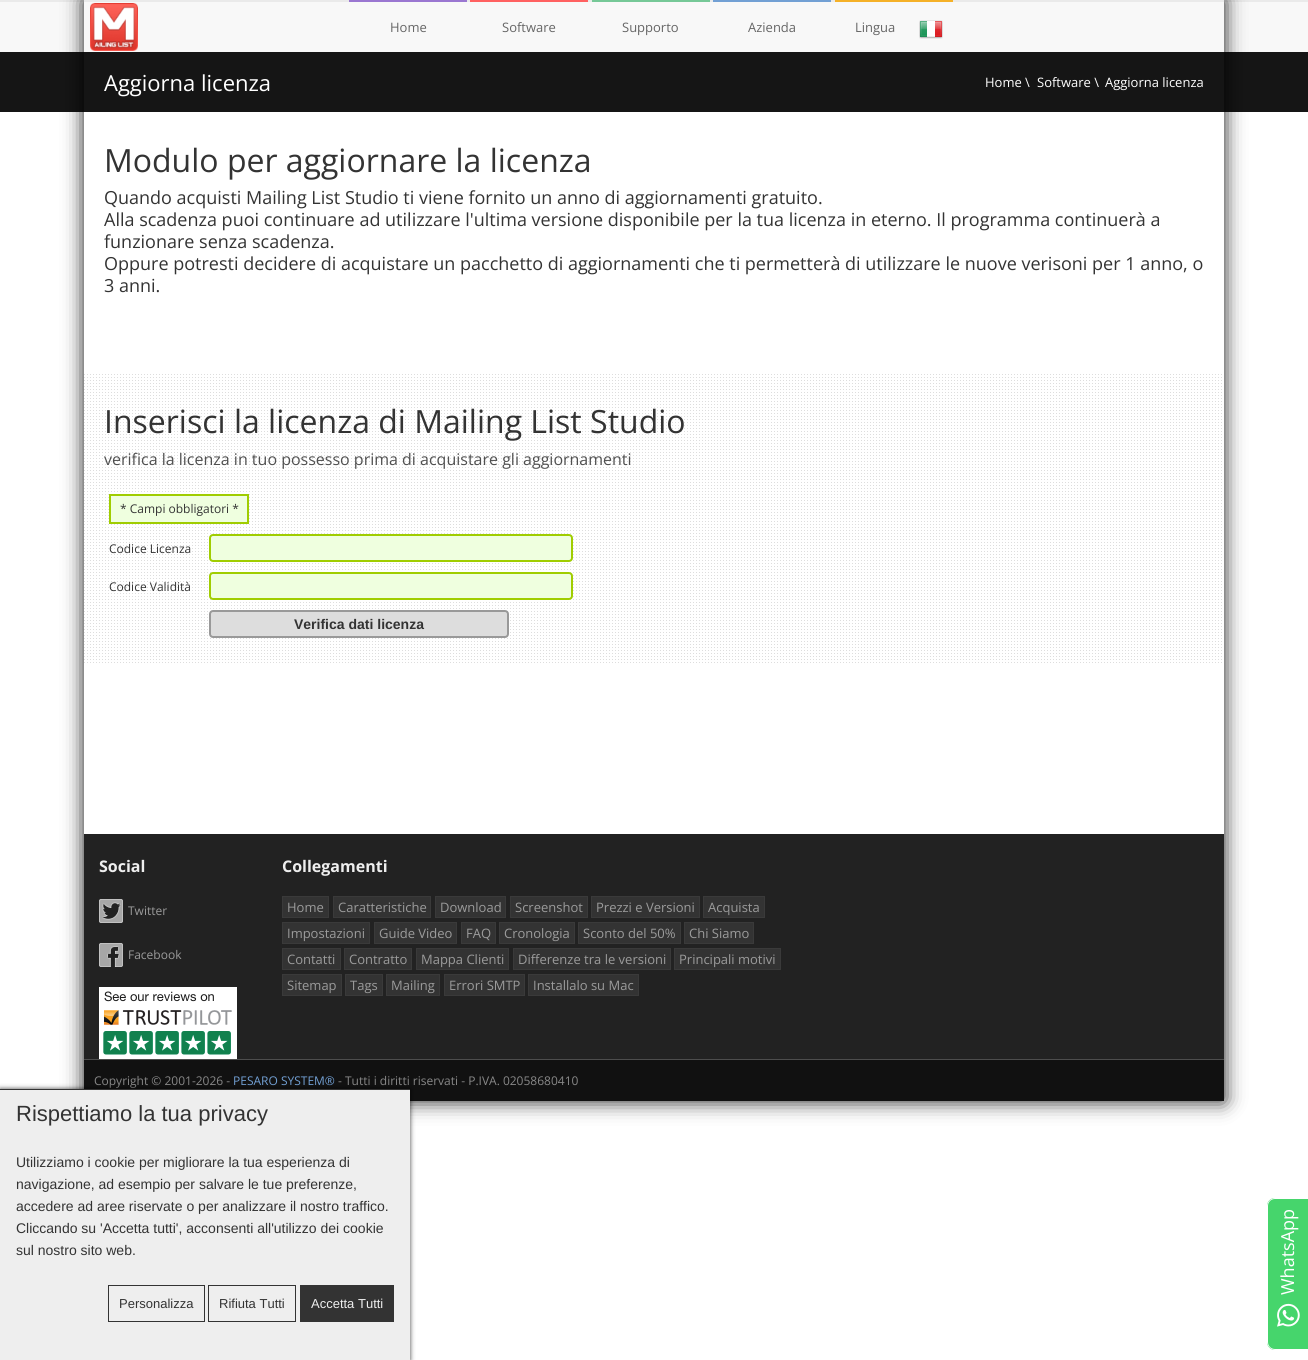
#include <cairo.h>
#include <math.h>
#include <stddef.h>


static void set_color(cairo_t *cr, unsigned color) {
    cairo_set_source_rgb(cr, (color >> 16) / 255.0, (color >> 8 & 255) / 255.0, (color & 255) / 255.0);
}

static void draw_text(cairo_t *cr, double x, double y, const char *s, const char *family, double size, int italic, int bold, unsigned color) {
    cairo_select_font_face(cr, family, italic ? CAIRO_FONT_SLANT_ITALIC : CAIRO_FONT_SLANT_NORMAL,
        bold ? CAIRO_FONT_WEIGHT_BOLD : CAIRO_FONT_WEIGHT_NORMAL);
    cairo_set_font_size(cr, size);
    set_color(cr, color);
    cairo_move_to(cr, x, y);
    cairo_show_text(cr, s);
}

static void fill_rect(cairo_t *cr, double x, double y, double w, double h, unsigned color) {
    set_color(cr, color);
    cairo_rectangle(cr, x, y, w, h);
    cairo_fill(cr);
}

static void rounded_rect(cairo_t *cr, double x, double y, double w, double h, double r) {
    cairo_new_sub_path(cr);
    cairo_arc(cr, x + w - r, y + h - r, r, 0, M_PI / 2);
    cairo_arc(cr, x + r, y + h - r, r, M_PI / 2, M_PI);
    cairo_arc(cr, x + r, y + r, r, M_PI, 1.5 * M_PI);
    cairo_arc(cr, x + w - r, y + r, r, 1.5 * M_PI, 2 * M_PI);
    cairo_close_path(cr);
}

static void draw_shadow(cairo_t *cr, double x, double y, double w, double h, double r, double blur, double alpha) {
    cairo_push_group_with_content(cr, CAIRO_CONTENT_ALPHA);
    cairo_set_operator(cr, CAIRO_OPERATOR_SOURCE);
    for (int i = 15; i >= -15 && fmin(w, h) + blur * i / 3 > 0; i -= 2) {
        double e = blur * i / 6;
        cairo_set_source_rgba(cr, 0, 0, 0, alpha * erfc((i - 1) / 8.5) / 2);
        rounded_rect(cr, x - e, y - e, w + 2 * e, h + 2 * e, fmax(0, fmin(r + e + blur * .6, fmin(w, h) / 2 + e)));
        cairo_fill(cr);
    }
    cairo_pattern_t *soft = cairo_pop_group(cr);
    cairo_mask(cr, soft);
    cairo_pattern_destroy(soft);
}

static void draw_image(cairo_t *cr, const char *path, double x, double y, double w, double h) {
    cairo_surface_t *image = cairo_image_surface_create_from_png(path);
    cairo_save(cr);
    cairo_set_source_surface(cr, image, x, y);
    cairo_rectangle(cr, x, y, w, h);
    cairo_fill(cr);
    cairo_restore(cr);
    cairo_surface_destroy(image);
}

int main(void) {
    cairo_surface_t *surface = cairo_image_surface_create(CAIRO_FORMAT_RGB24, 1308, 1360);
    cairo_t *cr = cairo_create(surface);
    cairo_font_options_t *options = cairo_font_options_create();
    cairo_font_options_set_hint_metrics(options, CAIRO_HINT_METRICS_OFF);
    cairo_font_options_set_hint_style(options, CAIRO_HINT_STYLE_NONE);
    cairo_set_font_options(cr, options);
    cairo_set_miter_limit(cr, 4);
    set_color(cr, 0xFFFFFF);
    cairo_paint(cr);
    draw_image(cr, "assets/img1.png", 0, 0, 1308, 112);
    set_color(cr, 0x000000);
    draw_shadow(cr, 84, 0, 1140, 1101, 0, 10, 0.9);
    fill_rect(cr, 84, 112, 1140, 722, 0xFFFFFF);
    fill_rect(cr, 84, 2, 1140, 50, 0xF8F8F8);
    fill_rect(cr, 84, 0, 1140, 2, 0xEAEAEA);
    draw_image(cr, "assets/img2.png", 90, 3, 48, 48);
    fill_rect(cr, 349, 0, 118, 2, 0x9A77D1);
    draw_text(cr, 390, 32, "Home", "Open Sans", 13, 0, 0, 0x666666);
    fill_rect(cr, 470, 0, 118, 2, 0xFF6161);
    draw_text(cr, 502, 32, "Software", "Open Sans", 13, 0, 0, 0x666666);
    fill_rect(cr, 592, 0, 118, 2, 0x76C897);
    draw_text(cr, 622, 32, "Supporto", "Open Sans", 13, 0, 0, 0x666666);
    fill_rect(cr, 713, 0, 118, 2, 0x72A0D4);
    draw_text(cr, 748, 32, "Azienda", "Open Sans", 13, 0, 0, 0x666666);
    fill_rect(cr, 835, 0, 118, 2, 0xF5B128);
    draw_text(cr, 855, 32, "Lingua", "Open Sans", 13, 0, 0, 0x666666);
    draw_image(cr, "assets/img3.png", 919, 20, 24, 19);
    fill_rect(cr, 84, 52, 1140, 60, 0x151515);
    draw_text(cr, 104, 91, "Aggiorna licenza", "Open Sans", 22, 0, 0, 0xFFFFFF);
    draw_text(cr, 985, 87, "Home \\", "Open Sans", 13, 0, 0, 0xFFFFFF);
    draw_text(cr, 1037, 87, "Software \\", "Open Sans", 13, 0, 0, 0xFFFFFF);
    draw_text(cr, 1105, 87, "Aggiorna licenza", "Open Sans", 13, 0, 0, 0xFFFFFF);
    draw_text(cr, 104, 172, "Modulo per aggiornare la licenza", "Open Sans", 32, 0, 0, 0x333333);
    draw_text(cr, 104, 204, "Quando acquisti Mailing List Studio ti viene fornito un anno di aggiornamenti gratuito.", "Open Sans", 18, 0, 0, 0x333333);
    draw_text(cr, 104, 226, "Alla scadenza puoi continuare ad utilizzare l'ultima versione disponibile per la tua licenza in eterno. Il programma continuerà a", "Open Sans", 18, 0, 0, 0x333333);
    draw_text(cr, 104, 248, "funzionare senza scadenza.", "Open Sans", 18, 0, 0, 0x333333);
    draw_text(cr, 104, 270, "Oppure potresti decidere di acquistare un pacchetto di aggiornamenti che ti permetterà di utilizzare le nuove verisoni per 1 anno, o", "Open Sans", 18, 0, 0, 0x333333);
    draw_text(cr, 104, 292, "3 anni.", "Open Sans", 18, 0, 0, 0x333333);
    draw_image(cr, "assets/img4.png", 84, 374, 1138, 289);
    draw_text(cr, 104, 433, "Inserisci la licenza di Mailing List Studio", "Open Sans", 32, 0, 0, 0x333333);
    draw_text(cr, 104, 465, "verifica la licenza in tuo possesso prima di acquistare gli aggiornamenti", "Open Sans", 16, 0, 0, 0x505050);
    set_color(cr, 0xEFFFDF);
    cairo_rectangle(cr, 110, 495, 138, 28);
    cairo_fill_preserve(cr);
    set_color(cr, 0xA0CD01);
    cairo_stroke(cr);
    draw_text(cr, 120, 513, "* Campi obbligatori *", "Open Sans", 12, 0, 0, 0x333333);
    draw_text(cr, 109, 553, "Codice Licenza", "Open Sans", 12, 0, 0, 0x333333);
    set_color(cr, 0xEFFFDF);
    rounded_rect(cr, 210, 535, 362, 26, 3);
    cairo_fill_preserve(cr);
    set_color(cr, 0xA0CD01);
    cairo_stroke(cr);
    draw_text(cr, 109, 591, "Codice Validità", "Open Sans", 12, 0, 0, 0x333333);
    set_color(cr, 0xEFFFDF);
    rounded_rect(cr, 210, 573, 362, 26, 3);
    cairo_fill_preserve(cr);
    set_color(cr, 0xA0CD01);
    cairo_stroke(cr);
    set_color(cr, 0xDDDDDD);
    rounded_rect(cr, 210, 611, 298, 26, 3);
    cairo_fill_preserve(cr);
    set_color(cr, 0x999999);
    cairo_stroke(cr);
    draw_text(cr, 294, 629, "Verifica dati licenza", "Liberation Sans", 14, 0, 1, 0x333333);
    fill_rect(cr, 84, 834, 1140, 225, 0x222222);
    draw_text(cr, 99, 872, "Social", "Open Sans", 16, 0, 1, 0xEEEEEE);
    draw_image(cr, "assets/img5.png", 99, 899, 24, 24);
    draw_text(cr, 128, 915, "Twitter", "Open Sans", 12, 0, 0, 0x9B9B9B);
    draw_image(cr, "assets/img6.png", 99, 943, 24, 24);
    draw_text(cr, 128, 959, "Facebook", "Open Sans", 12, 0, 0, 0x9B9B9B);
    draw_image(cr, "assets/img7.png", 99, 987, 138, 72);
    draw_text(cr, 282, 872, "Collegamenti", "Open Sans", 16, 0, 1, 0xEEEEEE);
    set_color(cr, 0x333333);
    cairo_rectangle(cr, 282.5, 896.5, 46, 21);
    cairo_fill_preserve(cr);
    set_color(cr, 0x3A3A3A);
    cairo_set_line_width(cr, 1);
    cairo_stroke(cr);
    draw_text(cr, 287, 912, "Home", "Open Sans", 13, 0, 0, 0x9B9B9B);
    set_color(cr, 0x333333);
    cairo_rectangle(cr, 333.5, 896.5, 97, 21);
    cairo_fill_preserve(cr);
    set_color(cr, 0x3A3A3A);
    cairo_stroke(cr);
    draw_text(cr, 338, 912, "Caratteristiche", "Open Sans", 13, 0, 0, 0x9B9B9B);
    set_color(cr, 0x333333);
    cairo_rectangle(cr, 435.5, 896.5, 70, 21);
    cairo_fill_preserve(cr);
    set_color(cr, 0x3A3A3A);
    cairo_stroke(cr);
    draw_text(cr, 440, 912, "Download", "Open Sans", 13, 0, 0, 0x9B9B9B);
    set_color(cr, 0x333333);
    cairo_rectangle(cr, 510.5, 896.5, 77, 21);
    cairo_fill_preserve(cr);
    set_color(cr, 0x3A3A3A);
    cairo_stroke(cr);
    draw_text(cr, 515, 912, "Screenshot", "Open Sans", 13, 0, 0, 0x9B9B9B);
    set_color(cr, 0x333333);
    cairo_rectangle(cr, 591.5, 896.5, 108, 21);
    cairo_fill_preserve(cr);
    set_color(cr, 0x3A3A3A);
    cairo_stroke(cr);
    draw_text(cr, 596, 912, "Prezzi e Versioni", "Open Sans", 13, 0, 0, 0x9B9B9B);
    set_color(cr, 0x333333);
    cairo_rectangle(cr, 703.5, 896.5, 61, 21);
    cairo_fill_preserve(cr);
    set_color(cr, 0x3A3A3A);
    cairo_stroke(cr);
    draw_text(cr, 708, 912, "Acquista", "Open Sans", 13, 0, 0, 0x9B9B9B);
    set_color(cr, 0x333333);
    cairo_rectangle(cr, 282.5, 922.5, 87, 21);
    cairo_fill_preserve(cr);
    set_color(cr, 0x3A3A3A);
    cairo_stroke(cr);
    draw_text(cr, 287, 938, "Impostazioni", "Open Sans", 13, 0, 0, 0x9B9B9B);
    set_color(cr, 0x333333);
    cairo_rectangle(cr, 374.5, 922.5, 82, 21);
    cairo_fill_preserve(cr);
    set_color(cr, 0x3A3A3A);
    cairo_stroke(cr);
    draw_text(cr, 379, 938, "Guide Video", "Open Sans", 13, 0, 0, 0x9B9B9B);
    set_color(cr, 0x333333);
    cairo_rectangle(cr, 461.5, 922.5, 34, 21);
    cairo_fill_preserve(cr);
    set_color(cr, 0x3A3A3A);
    cairo_stroke(cr);
    draw_text(cr, 466, 938, "FAQ", "Open Sans", 13, 0, 0, 0x9B9B9B);
    set_color(cr, 0x333333);
    cairo_rectangle(cr, 499.5, 922.5, 75, 21);
    cairo_fill_preserve(cr);
    set_color(cr, 0x3A3A3A);
    cairo_stroke(cr);
    draw_text(cr, 504, 938, "Cronologia", "Open Sans", 13, 0, 0, 0x9B9B9B);
    set_color(cr, 0x333333);
    cairo_rectangle(cr, 578.5, 922.5, 102, 21);
    cairo_fill_preserve(cr);
    set_color(cr, 0x3A3A3A);
    cairo_stroke(cr);
    draw_text(cr, 583, 938, "Sconto del 50%", "Open Sans", 13, 0, 0, 0x9B9B9B);
    set_color(cr, 0x333333);
    cairo_rectangle(cr, 684.5, 922.5, 69, 21);
    cairo_fill_preserve(cr);
    set_color(cr, 0x3A3A3A);
    cairo_stroke(cr);
    draw_text(cr, 689, 938, "Chi Siamo", "Open Sans", 13, 0, 0, 0x9B9B9B);
    set_color(cr, 0x333333);
    cairo_rectangle(cr, 282.5, 948.5, 58, 21);
    cairo_fill_preserve(cr);
    set_color(cr, 0x3A3A3A);
    cairo_stroke(cr);
    draw_text(cr, 287, 964, "Contatti", "Open Sans", 13, 0, 0, 0x9B9B9B);
    set_color(cr, 0x333333);
    cairo_rectangle(cr, 344.5, 948.5, 67, 21);
    cairo_fill_preserve(cr);
    set_color(cr, 0x3A3A3A);
    cairo_stroke(cr);
    draw_text(cr, 349, 964, "Contratto", "Open Sans", 13, 0, 0, 0x9B9B9B);
    set_color(cr, 0x333333);
    cairo_rectangle(cr, 416.5, 948.5, 92, 21);
    cairo_fill_preserve(cr);
    set_color(cr, 0x3A3A3A);
    cairo_stroke(cr);
    draw_text(cr, 421, 964, "Mappa Clienti", "Open Sans", 13, 0, 0, 0x9B9B9B);
    set_color(cr, 0x333333);
    cairo_rectangle(cr, 513.5, 948.5, 157, 21);
    cairo_fill_preserve(cr);
    set_color(cr, 0x3A3A3A);
    cairo_stroke(cr);
    draw_text(cr, 518, 964, "Differenze tra le versioni", "Open Sans", 13, 0, 0, 0x9B9B9B);
    set_color(cr, 0x333333);
    cairo_rectangle(cr, 674.5, 948.5, 106, 21);
    cairo_fill_preserve(cr);
    set_color(cr, 0x3A3A3A);
    cairo_stroke(cr);
    draw_text(cr, 679, 964, "Principali motivi", "Open Sans", 13, 0, 0, 0x9B9B9B);
    set_color(cr, 0x333333);
    cairo_rectangle(cr, 282.5, 974.5, 59, 21);
    cairo_fill_preserve(cr);
    set_color(cr, 0x3A3A3A);
    cairo_stroke(cr);
    draw_text(cr, 287, 990, "Sitemap", "Open Sans", 13, 0, 0, 0x9B9B9B);
    set_color(cr, 0x333333);
    cairo_rectangle(cr, 345.5, 974.5, 37, 21);
    cairo_fill_preserve(cr);
    set_color(cr, 0x3A3A3A);
    cairo_stroke(cr);
    draw_text(cr, 350, 990, "Tags", "Open Sans", 13, 0, 0, 0x9B9B9B);
    set_color(cr, 0x333333);
    cairo_rectangle(cr, 386.5, 974.5, 53, 21);
    cairo_fill_preserve(cr);
    set_color(cr, 0x3A3A3A);
    cairo_stroke(cr);
    draw_text(cr, 391, 990, "Mailing", "Open Sans", 13, 0, 0, 0x9B9B9B);
    set_color(cr, 0x333333);
    cairo_rectangle(cr, 444.5, 974.5, 80, 21);
    cairo_fill_preserve(cr);
    set_color(cr, 0x3A3A3A);
    cairo_stroke(cr);
    draw_text(cr, 449, 990, "Errori SMTP", "Open Sans", 13, 0, 0, 0x9B9B9B);
    set_color(cr, 0x333333);
    cairo_rectangle(cr, 528.5, 974.5, 110, 21);
    cairo_fill_preserve(cr);
    set_color(cr, 0x3A3A3A);
    cairo_stroke(cr);
    draw_text(cr, 533, 990, "Installalo su Mac", "Open Sans", 13, 0, 0, 0x9B9B9B);
    fill_rect(cr, 84, 1060, 1140, 41, 0x111111);
    fill_rect(cr, 84, 1059, 1140, 1, 0x4D4D4D);
    draw_text(cr, 94, 1085, "Copyright © 2001-2026 -", "Open Sans", 12, 0, 0, 0x888888);
    draw_text(cr, 233, 1085, "PESARO SYSTEM®", "Open Sans", 12, 0, 0, 0x72A0D4);
    draw_text(cr, 338, 1085, "- Tutti i diritti riservati - P.IVA. 02058680410", "Open Sans", 12, 0, 0, 0x888888);
    set_color(cr, 0x46D56C);
    cairo_new_path(cr);
    cairo_move_to(cr, 1275, 1198);
    cairo_line_to(cr, 1308, 1198);
    cairo_line_to(cr, 1308, 1350);
    cairo_line_to(cr, 1275, 1350);
    cairo_curve_to(cr, 1270.5, 1350, 1267, 1346.5, 1267, 1342);
    cairo_line_to(cr, 1267, 1206);
    cairo_curve_to(cr, 1267, 1201.5, 1270.5, 1198, 1275, 1198);
    cairo_close_path(cr);
    cairo_fill(cr);
    set_color(cr, 0xFFFFFF);
    cairo_set_fill_rule(cr, CAIRO_FILL_RULE_EVEN_ODD);
    cairo_new_path(cr);
    cairo_move_to(cr, 1275, 1198);
    cairo_line_to(cr, 1308, 1198);
    cairo_line_to(cr, 1308, 1350);
    cairo_line_to(cr, 1275, 1350);
    cairo_curve_to(cr, 1271, 1350, 1267, 1346, 1267, 1342);
    cairo_line_to(cr, 1267, 1206);
    cairo_curve_to(cr, 1267, 1202, 1271, 1198, 1275, 1198);
    cairo_close_path(cr);
    cairo_move_to(cr, 1275, 1199);
    cairo_line_to(cr, 1308, 1199);
    cairo_line_to(cr, 1308, 1349);
    cairo_line_to(cr, 1275, 1349);
    cairo_curve_to(cr, 1271, 1349, 1268, 1346, 1268, 1342);
    cairo_line_to(cr, 1268, 1206);
    cairo_curve_to(cr, 1268, 1202, 1271, 1199, 1275, 1199);
    cairo_close_path(cr);
    cairo_fill(cr);
    cairo_save(cr);
    cairo_translate(cr, 1294, 1295);
    cairo_rotate(cr, -90 * M_PI / 180);
    draw_text(cr, 0, 0, "WhatsApp", "Open Sans", 18, 0, 0, 0xFFFFFF);
    cairo_restore(cr);
    draw_image(cr, "assets/img8.png", 1277, 1303, 23, 24);
    set_color(cr, 0x000000);
    draw_shadow(cr, 0, 1089, 410, 271, 0, 2.5, 0.75);
    fill_rect(cr, 0, 1090, 410, 270, 0xEEEEEE);
    fill_rect(cr, 0, 1089, 410, 1, 0x333333);
    draw_text(cr, 16, 1121, "Rispettiamo la tua privacy", "Liberation Sans", 22, 0, 0, 0x333333);
    draw_text(cr, 16, 1167, "Utilizziamo i cookie per migliorare la tua esperienza di", "Liberation Sans", 14, 0, 0, 0x333333);
    draw_text(cr, 16, 1189, "navigazione, ad esempio per salvare le tue preferenze,", "Liberation Sans", 14, 0, 0, 0x333333);
    draw_text(cr, 16, 1211, "accedere ad aree riservate o per analizzare il nostro traffico.", "Liberation Sans", 14, 0, 0, 0x333333);
    draw_text(cr, 16, 1233, "Cliccando su 'Accetta tutti', acconsenti all'utilizzo dei cookie", "Liberation Sans", 14, 0, 0, 0x333333);
    draw_text(cr, 16, 1255, "sul nostro sito web.", "Liberation Sans", 14, 0, 0, 0x333333);
    cairo_rectangle(cr, 108.5, 1285.5, 96, 36);
    cairo_stroke(cr);
    draw_text(cr, 119, 1308, "Personalizza", "Liberation Sans", 13, 0, 0, 0x333333);
    cairo_rectangle(cr, 208.5, 1285.5, 87, 36);
    cairo_stroke(cr);
    draw_text(cr, 219, 1308, "Rifiuta Tutti", "Liberation Sans", 13, 0, 0, 0x333333);
    fill_rect(cr, 300, 1285, 94, 37, 0x333333);
    draw_text(cr, 311, 1308, "Accetta Tutti", "Liberation Sans", 13, 0, 0, 0xEEEEEE);
    cairo_surface_write_to_png(surface, "output.png");
    cairo_font_options_destroy(options);
    cairo_destroy(cr);
    cairo_surface_destroy(surface);
    return 0;
}
